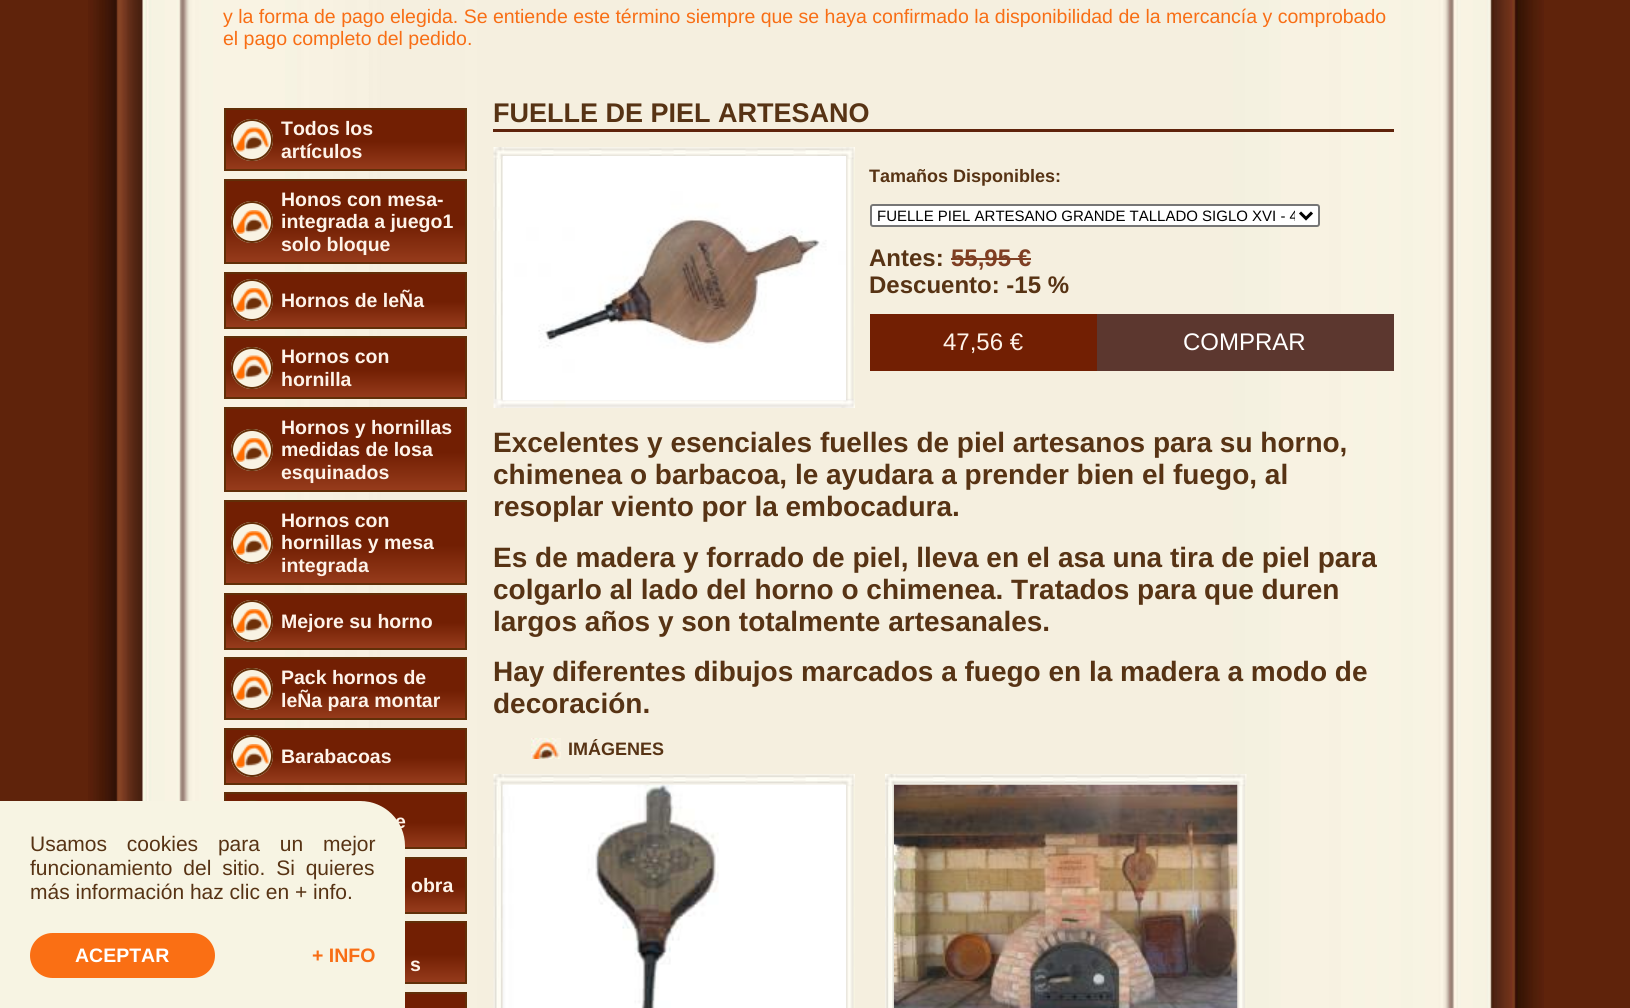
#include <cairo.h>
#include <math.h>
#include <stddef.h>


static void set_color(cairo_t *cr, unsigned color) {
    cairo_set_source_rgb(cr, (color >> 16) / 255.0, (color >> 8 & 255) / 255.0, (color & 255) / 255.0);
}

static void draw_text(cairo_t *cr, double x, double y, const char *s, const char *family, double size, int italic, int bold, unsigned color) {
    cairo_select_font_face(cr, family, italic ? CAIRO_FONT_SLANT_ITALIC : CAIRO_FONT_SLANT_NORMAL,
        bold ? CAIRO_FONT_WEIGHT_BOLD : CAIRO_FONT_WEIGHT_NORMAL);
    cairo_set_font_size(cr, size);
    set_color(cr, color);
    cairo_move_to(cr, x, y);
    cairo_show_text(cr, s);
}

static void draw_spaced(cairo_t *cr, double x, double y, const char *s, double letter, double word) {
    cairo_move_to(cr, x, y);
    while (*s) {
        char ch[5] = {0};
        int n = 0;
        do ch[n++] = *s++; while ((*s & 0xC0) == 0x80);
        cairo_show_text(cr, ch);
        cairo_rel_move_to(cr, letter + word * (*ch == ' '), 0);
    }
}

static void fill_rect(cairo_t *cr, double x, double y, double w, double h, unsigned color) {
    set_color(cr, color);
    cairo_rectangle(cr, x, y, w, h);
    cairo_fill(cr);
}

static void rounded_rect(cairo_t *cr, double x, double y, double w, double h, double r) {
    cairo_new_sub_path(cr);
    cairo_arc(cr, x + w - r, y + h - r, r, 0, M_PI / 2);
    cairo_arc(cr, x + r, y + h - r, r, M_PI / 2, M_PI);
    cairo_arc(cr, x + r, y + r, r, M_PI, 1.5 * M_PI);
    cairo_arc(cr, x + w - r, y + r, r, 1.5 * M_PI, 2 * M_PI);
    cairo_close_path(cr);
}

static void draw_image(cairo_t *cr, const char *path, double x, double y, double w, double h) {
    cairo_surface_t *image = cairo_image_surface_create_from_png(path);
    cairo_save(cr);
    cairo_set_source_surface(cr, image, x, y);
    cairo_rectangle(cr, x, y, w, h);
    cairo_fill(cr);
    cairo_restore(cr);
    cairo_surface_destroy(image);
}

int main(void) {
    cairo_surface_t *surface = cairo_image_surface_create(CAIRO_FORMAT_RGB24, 1630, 1008);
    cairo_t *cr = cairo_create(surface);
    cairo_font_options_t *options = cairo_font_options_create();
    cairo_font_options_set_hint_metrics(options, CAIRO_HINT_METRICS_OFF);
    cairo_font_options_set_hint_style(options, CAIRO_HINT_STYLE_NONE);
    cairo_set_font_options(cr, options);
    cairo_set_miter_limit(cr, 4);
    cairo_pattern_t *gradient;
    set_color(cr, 0x5F230B);
    cairo_paint(cr);
    draw_image(cr, "assets/img1.png", 88, 0, 1456, 1008);
    gradient = cairo_pattern_create_linear(345, 794, 345, 848);
    cairo_pattern_add_color_stop_rgba(gradient, 0, 0.447, 0.122, 0.012, 1);
    cairo_pattern_add_color_stop_rgba(gradient, 0.53, 0.447, 0.122, 0.012, 1);
    cairo_pattern_add_color_stop_rgba(gradient, 1, 0.592, 0.235, 0.11, 1);
    cairo_set_source(cr, gradient);
    cairo_pattern_destroy(gradient);
    cairo_rectangle(cr, 226, 794, 239, 53);
    cairo_fill(cr);
    cairo_rectangle(cr, 225, 793, 241, 55);
    set_color(cr, 0x612F08);
    cairo_stroke(cr);
    cairo_arc(cr, 252, 821, 20, 0, 2 * M_PI);
    set_color(cr, 0x642F08);
    cairo_stroke(cr);
    draw_text(cr, 395, 828, "e", "Liberation Sans", 19.5, 0, 1, 0xFEF3E9);
    gradient = cairo_pattern_create_linear(345, 858, 345, 912);
    cairo_pattern_add_color_stop_rgba(gradient, 0, 0.447, 0.122, 0.012, 1);
    cairo_pattern_add_color_stop_rgba(gradient, 0.53, 0.447, 0.122, 0.012, 1);
    cairo_pattern_add_color_stop_rgba(gradient, 1, 0.592, 0.235, 0.11, 1);
    cairo_set_source(cr, gradient);
    cairo_pattern_destroy(gradient);
    cairo_rectangle(cr, 405, 859, 60, 53);
    cairo_fill(cr);
    cairo_rectangle(cr, 225, 858, 241, 55);
    set_color(cr, 0x612F08);
    cairo_stroke(cr);
    gradient = cairo_pattern_create_linear(345, 923, 345, 983);
    cairo_pattern_add_color_stop_rgba(gradient, 0, 0.447, 0.122, 0.012, 1);
    cairo_pattern_add_color_stop_rgba(gradient, 0.53, 0.447, 0.122, 0.012, 1);
    cairo_pattern_add_color_stop_rgba(gradient, 1, 0.592, 0.235, 0.11, 1);
    cairo_set_source(cr, gradient);
    cairo_pattern_destroy(gradient);
    cairo_rectangle(cr, 405, 923, 60, 59);
    cairo_fill(cr);
    cairo_rectangle(cr, 225, 922, 241, 61);
    set_color(cr, 0x612F08);
    cairo_stroke(cr);
    gradient = cairo_pattern_create_linear(345, 993, 345, 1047);
    cairo_pattern_add_color_stop_rgba(gradient, 0, 0.447, 0.122, 0.012, 1);
    cairo_pattern_add_color_stop_rgba(gradient, 0.53, 0.447, 0.122, 0.012, 1);
    cairo_pattern_add_color_stop_rgba(gradient, 1, 0.592, 0.235, 0.11, 1);
    cairo_set_source(cr, gradient);
    cairo_pattern_destroy(gradient);
    cairo_rectangle(cr, 405, 994, 60, 14);
    cairo_fill(cr);
    cairo_rectangle(cr, 225, 993, 241, 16);
    set_color(cr, 0x612F08);
    cairo_stroke(cr);
    set_color(cr, 0xF7F4E3);
    cairo_new_path(cr);
    cairo_move_to(cr, 0, 801);
    cairo_line_to(cr, 360, 801);
    cairo_curve_to(cr, 385, 801, 405, 821, 405, 846);
    cairo_line_to(cr, 405, 1008);
    cairo_line_to(cr, 0, 1008);
    cairo_close_path(cr);
    cairo_fill(cr);
    cairo_select_font_face(cr, "Liberation Sans", CAIRO_FONT_SLANT_NORMAL, CAIRO_FONT_WEIGHT_NORMAL);
    cairo_set_font_size(cr, 21);
    set_color(cr, 0x573314);
    draw_spaced(cr, 30, 851, "Usamos cookies para un mejor", 0, 14);
    draw_spaced(cr, 30, 875, "funcionamiento del sitio. Si quieres", 0, 5);
    draw_text(cr, 30, 899, "más información haz clic en + info.", "Liberation Sans", 21, 0, 0, 0x573314);
    set_color(cr, 0xFA6F14);
    rounded_rect(cr, 30, 933, 185, 45, 22.5);
    cairo_fill(cr);
    draw_text(cr, 75, 962, "ACEPTAR", "Liberation Sans", 19.5, 0, 1, 0xFFFFFF);
    draw_text(cr, 312, 962, "+ INFO", "Liberation Sans", 19.5, 0, 1, 0xF86E15);
    draw_text(cr, 223, 23, "y la forma de pago elegida. Se entiende este término siempre que se haya confirmado la disponibilidad de la mercancía y comprobado", "Liberation Sans", 19.5, 0, 0, 0xF86E15);
    draw_text(cr, 223, 45, "el pago completo del pedido.", "Liberation Sans", 19.5, 0, 0, 0xF86E15);
    gradient = cairo_pattern_create_linear(345, 109, 345, 170);
    cairo_pattern_add_color_stop_rgba(gradient, 0, 0.447, 0.122, 0.012, 1);
    cairo_pattern_add_color_stop_rgba(gradient, 0.53, 0.447, 0.122, 0.012, 1);
    cairo_pattern_add_color_stop_rgba(gradient, 1, 0.592, 0.235, 0.11, 1);
    cairo_set_source(cr, gradient);
    cairo_pattern_destroy(gradient);
    cairo_rectangle(cr, 226, 110, 239, 59);
    cairo_fill(cr);
    cairo_rectangle(cr, 225, 109, 241, 61);
    set_color(cr, 0x612F08);
    cairo_stroke(cr);
    set_color(cr, 0xF9F3E3);
    cairo_arc(cr, 252, 140, 21, 0, 2 * M_PI);
    cairo_fill(cr);
    draw_image(cr, "assets/img2.png", 235, 127, 34, 25);
    cairo_arc(cr, 252, 140, 20, 0, 2 * M_PI);
    set_color(cr, 0x642F08);
    cairo_stroke(cr);
    draw_text(cr, 281, 135, "Todos los", "Liberation Sans", 19.5, 0, 1, 0xFEF3E9);
    draw_text(cr, 281, 158, "artículos", "Liberation Sans", 19.5, 0, 1, 0xFEF3E9);
    gradient = cairo_pattern_create_linear(345, 180, 345, 263);
    cairo_pattern_add_color_stop_rgba(gradient, 0, 0.447, 0.122, 0.012, 1);
    cairo_pattern_add_color_stop_rgba(gradient, 0.53, 0.447, 0.122, 0.012, 1);
    cairo_pattern_add_color_stop_rgba(gradient, 1, 0.592, 0.235, 0.11, 1);
    cairo_set_source(cr, gradient);
    cairo_pattern_destroy(gradient);
    cairo_rectangle(cr, 226, 181, 239, 81);
    cairo_fill(cr);
    cairo_rectangle(cr, 225, 180, 241, 83);
    set_color(cr, 0x612F08);
    cairo_stroke(cr);
    draw_text(cr, 281, 206, "Honos con mesa-", "Liberation Sans", 19.5, 0, 1, 0xFEF3E9);
    set_color(cr, 0xF9F3E3);
    cairo_new_path(cr);
    cairo_arc(cr, 252, 222, 21, 0, 2 * M_PI);
    cairo_fill(cr);
    draw_image(cr, "assets/img3.png", 235, 210, 34, 24);
    cairo_arc(cr, 252, 222, 20, 0, 2 * M_PI);
    set_color(cr, 0x642F08);
    cairo_stroke(cr);
    draw_text(cr, 281, 228, "integrada a juego1", "Liberation Sans", 19.5, 0, 1, 0xFEF3E9);
    draw_text(cr, 281, 251, "solo bloque", "Liberation Sans", 19.5, 0, 1, 0xFEF3E9);
    gradient = cairo_pattern_create_linear(345, 273, 345, 327);
    cairo_pattern_add_color_stop_rgba(gradient, 0, 0.447, 0.122, 0.012, 1);
    cairo_pattern_add_color_stop_rgba(gradient, 0.53, 0.447, 0.122, 0.012, 1);
    cairo_pattern_add_color_stop_rgba(gradient, 1, 0.592, 0.235, 0.11, 1);
    cairo_set_source(cr, gradient);
    cairo_pattern_destroy(gradient);
    cairo_rectangle(cr, 226, 274, 239, 53);
    cairo_fill(cr);
    cairo_rectangle(cr, 225, 273, 241, 55);
    set_color(cr, 0x612F08);
    cairo_stroke(cr);
    set_color(cr, 0xF9F3E3);
    cairo_arc(cr, 252, 300, 21, 0, 2 * M_PI);
    cairo_fill(cr);
    draw_image(cr, "assets/img3.png", 235, 288, 34, 24);
    cairo_arc(cr, 252, 300, 20, 0, 2 * M_PI);
    set_color(cr, 0x642F08);
    cairo_stroke(cr);
    draw_text(cr, 281, 307, "Hornos de leÑa", "Liberation Sans", 19.5, 0, 1, 0xFEF3E9);
    gradient = cairo_pattern_create_linear(345, 338, 345, 398);
    cairo_pattern_add_color_stop_rgba(gradient, 0, 0.447, 0.122, 0.012, 1);
    cairo_pattern_add_color_stop_rgba(gradient, 0.53, 0.447, 0.122, 0.012, 1);
    cairo_pattern_add_color_stop_rgba(gradient, 1, 0.592, 0.235, 0.11, 1);
    cairo_set_source(cr, gradient);
    cairo_pattern_destroy(gradient);
    cairo_rectangle(cr, 226, 338, 239, 59);
    cairo_fill(cr);
    cairo_rectangle(cr, 225, 337, 241, 61);
    set_color(cr, 0x612F08);
    cairo_stroke(cr);
    set_color(cr, 0xF9F3E3);
    cairo_arc(cr, 252, 368, 21, 0, 2 * M_PI);
    cairo_fill(cr);
    draw_image(cr, "assets/img2.png", 235, 355, 34, 25);
    cairo_arc(cr, 252, 368, 20, 0, 2 * M_PI);
    set_color(cr, 0x642F08);
    cairo_stroke(cr);
    draw_text(cr, 281, 363, "Hornos con", "Liberation Sans", 19.5, 0, 1, 0xFEF3E9);
    draw_text(cr, 281, 386, "hornilla", "Liberation Sans", 19.5, 0, 1, 0xFEF3E9);
    gradient = cairo_pattern_create_linear(345, 408, 345, 491);
    cairo_pattern_add_color_stop_rgba(gradient, 0, 0.447, 0.122, 0.012, 1);
    cairo_pattern_add_color_stop_rgba(gradient, 0.53, 0.447, 0.122, 0.012, 1);
    cairo_pattern_add_color_stop_rgba(gradient, 1, 0.592, 0.235, 0.11, 1);
    cairo_set_source(cr, gradient);
    cairo_pattern_destroy(gradient);
    cairo_rectangle(cr, 226, 409, 239, 81);
    cairo_fill(cr);
    cairo_rectangle(cr, 225, 408, 241, 83);
    set_color(cr, 0x612F08);
    cairo_stroke(cr);
    set_color(cr, 0xF9F3E3);
    cairo_arc(cr, 252, 450, 21, 0, 2 * M_PI);
    cairo_fill(cr);
    draw_image(cr, "assets/img3.png", 235, 438, 34, 24);
    cairo_arc(cr, 252, 450, 20, 0, 2 * M_PI);
    set_color(cr, 0x642F08);
    cairo_stroke(cr);
    draw_text(cr, 281, 434, "Hornos y hornillas", "Liberation Sans", 19.5, 0, 1, 0xFEF3E9);
    draw_text(cr, 281, 456, "medidas de losa", "Liberation Sans", 19.5, 0, 1, 0xFEF3E9);
    draw_text(cr, 281, 479, "esquinados", "Liberation Sans", 19.5, 0, 1, 0xFEF3E9);
    gradient = cairo_pattern_create_linear(345, 501, 345, 584);
    cairo_pattern_add_color_stop_rgba(gradient, 0, 0.447, 0.122, 0.012, 1);
    cairo_pattern_add_color_stop_rgba(gradient, 0.53, 0.447, 0.122, 0.012, 1);
    cairo_pattern_add_color_stop_rgba(gradient, 1, 0.592, 0.235, 0.11, 1);
    cairo_set_source(cr, gradient);
    cairo_pattern_destroy(gradient);
    cairo_rectangle(cr, 226, 502, 239, 81);
    cairo_fill(cr);
    cairo_rectangle(cr, 225, 501, 241, 83);
    set_color(cr, 0x612F08);
    cairo_stroke(cr);
    draw_text(cr, 281, 527, "Hornos con", "Liberation Sans", 19.5, 0, 1, 0xFEF3E9);
    set_color(cr, 0xF9F3E3);
    cairo_new_path(cr);
    cairo_arc(cr, 252, 543, 21, 0, 2 * M_PI);
    cairo_fill(cr);
    draw_image(cr, "assets/img3.png", 235, 531, 34, 24);
    cairo_arc(cr, 252, 543, 20, 0, 2 * M_PI);
    set_color(cr, 0x642F08);
    cairo_stroke(cr);
    draw_text(cr, 281, 549, "hornillas y mesa", "Liberation Sans", 19.5, 0, 1, 0xFEF3E9);
    draw_text(cr, 281, 572, "integrada", "Liberation Sans", 19.5, 0, 1, 0xFEF3E9);
    gradient = cairo_pattern_create_linear(345, 594, 345, 648);
    cairo_pattern_add_color_stop_rgba(gradient, 0, 0.447, 0.122, 0.012, 1);
    cairo_pattern_add_color_stop_rgba(gradient, 0.53, 0.447, 0.122, 0.012, 1);
    cairo_pattern_add_color_stop_rgba(gradient, 1, 0.592, 0.235, 0.11, 1);
    cairo_set_source(cr, gradient);
    cairo_pattern_destroy(gradient);
    cairo_rectangle(cr, 226, 595, 239, 53);
    cairo_fill(cr);
    cairo_rectangle(cr, 225, 594, 241, 55);
    set_color(cr, 0x612F08);
    cairo_stroke(cr);
    set_color(cr, 0xF9F3E3);
    cairo_arc(cr, 252, 621, 21, 0, 2 * M_PI);
    cairo_fill(cr);
    draw_image(cr, "assets/img3.png", 235, 609, 34, 24);
    cairo_arc(cr, 252, 621, 20, 0, 2 * M_PI);
    set_color(cr, 0x642F08);
    cairo_stroke(cr);
    draw_text(cr, 281, 628, "Mejore su horno", "Liberation Sans", 19.5, 0, 1, 0xFEF3E9);
    gradient = cairo_pattern_create_linear(345, 659, 345, 719);
    cairo_pattern_add_color_stop_rgba(gradient, 0, 0.447, 0.122, 0.012, 1);
    cairo_pattern_add_color_stop_rgba(gradient, 0.53, 0.447, 0.122, 0.012, 1);
    cairo_pattern_add_color_stop_rgba(gradient, 1, 0.592, 0.235, 0.11, 1);
    cairo_set_source(cr, gradient);
    cairo_pattern_destroy(gradient);
    cairo_rectangle(cr, 226, 659, 239, 59);
    cairo_fill(cr);
    cairo_rectangle(cr, 225, 658, 241, 61);
    set_color(cr, 0x612F08);
    cairo_stroke(cr);
    set_color(cr, 0xF9F3E3);
    cairo_arc(cr, 252, 689, 21, 0, 2 * M_PI);
    cairo_fill(cr);
    draw_image(cr, "assets/img2.png", 235, 676, 34, 25);
    cairo_arc(cr, 252, 689, 20, 0, 2 * M_PI);
    set_color(cr, 0x642F08);
    cairo_stroke(cr);
    draw_text(cr, 281, 684, "Pack hornos de", "Liberation Sans", 19.5, 0, 1, 0xFEF3E9);
    draw_text(cr, 281, 707, "leÑa para montar", "Liberation Sans", 19.5, 0, 1, 0xFEF3E9);
    gradient = cairo_pattern_create_linear(345, 729, 345, 783);
    cairo_pattern_add_color_stop_rgba(gradient, 0, 0.447, 0.122, 0.012, 1);
    cairo_pattern_add_color_stop_rgba(gradient, 0.53, 0.447, 0.122, 0.012, 1);
    cairo_pattern_add_color_stop_rgba(gradient, 1, 0.592, 0.235, 0.11, 1);
    cairo_set_source(cr, gradient);
    cairo_pattern_destroy(gradient);
    cairo_rectangle(cr, 226, 730, 239, 53);
    cairo_fill(cr);
    cairo_rectangle(cr, 225, 729, 241, 55);
    set_color(cr, 0x612F08);
    cairo_stroke(cr);
    set_color(cr, 0xF9F3E3);
    cairo_arc(cr, 252, 756, 21, 0, 2 * M_PI);
    cairo_fill(cr);
    draw_image(cr, "assets/img3.png", 235, 744, 34, 24);
    cairo_arc(cr, 252, 756, 20, 0, 2 * M_PI);
    set_color(cr, 0x642F08);
    cairo_stroke(cr);
    draw_text(cr, 281, 763, "Barabacoas", "Liberation Sans", 19.5, 0, 1, 0xFEF3E9);
    draw_text(cr, 411, 892, "obra", "Liberation Sans", 19.5, 0, 1, 0xFEF3E9);
    draw_text(cr, 410, 971, "s", "Liberation Sans", 19.5, 0, 1, 0xFEF3E9);
    draw_text(cr, 493, 122, "FUELLE DE PIEL ARTESANO", "Liberation Sans", 27, 0, 1, 0x573314);
    fill_rect(cr, 493, 129, 901, 3, 0x5F230B);
    draw_image(cr, "assets/img4.png", 493, 147, 362, 261);
    draw_image(cr, "assets/img5.png", 502, 156, 344, 245);
    draw_text(cr, 869, 182, "Tamaños Disponibles:", "Liberation Sans", 18, 0, 1, 0x573314);
    set_color(cr, 0xFFFFFF);
    rounded_rect(cr, 871, 205, 448, 21, 2);
    cairo_fill_preserve(cr);
    set_color(cr, 0x767676);
    cairo_stroke(cr);
    cairo_new_path(cr);
    cairo_move_to(cr, 1300, 212.5);
    cairo_line_to(cr, 1306, 218.5);
    cairo_line_to(cr, 1312, 212.5);
    set_color(cr, 0x000000);
    cairo_set_line_width(cr, 3);
    cairo_stroke(cr);
    cairo_save(cr);
    cairo_rectangle(cr, 878, 206, 417, 19);
    cairo_clip(cr);
    draw_text(cr, 877, 221, "FUELLE PIEL ARTESANO GRANDE TALLADO SIGLO XVI - 4", "Liberation Sans", 15, 0, 0, 0x000000);
    cairo_restore(cr);
    draw_text(cr, 869, 266, "Antes:", "Liberation Sans", 24, 0, 1, 0x573314);
    draw_text(cr, 951, 266, "55,95 €", "Liberation Sans", 24, 0, 1, 0x7F3E22);
    fill_rect(cr, 951, 258, 80, 2, 0x7F3E22);
    draw_text(cr, 869, 293, "Descuento: -15 %", "Liberation Sans", 24, 0, 1, 0x573314);
    fill_rect(cr, 870, 314, 227, 57, 0x721F03);
    draw_text(cr, 943, 350, "47,56 €", "Liberation Sans", 24, 0, 0, 0xFEF3E9);
    fill_rect(cr, 1097, 314, 297, 57, 0x5C372F);
    draw_text(cr, 1183, 350, "COMPRAR", "Liberation Sans", 24, 0, 0, 0xFFFFFF);
    draw_text(cr, 493, 452, "Excelentes y esenciales fuelles de piel artesanos para su horno,", "Liberation Sans", 28, 0, 1, 0x573314);
    draw_text(cr, 493, 484, "chimenea o barbacoa, le ayudara a prender bien el fuego, al", "Liberation Sans", 28, 0, 1, 0x573314);
    draw_text(cr, 493, 516, "resoplar viento por la embocadura.", "Liberation Sans", 28, 0, 1, 0x573314);
    draw_text(cr, 493, 567, "Es de madera y forrado de piel, lleva en el asa una tira de piel para", "Liberation Sans", 28, 0, 1, 0x573314);
    draw_text(cr, 493, 599, "colgarlo al lado del horno o chimenea. Tratados para que duren", "Liberation Sans", 28, 0, 1, 0x573314);
    draw_text(cr, 493, 631, "largos años y son totalmente artesanales.", "Liberation Sans", 28, 0, 1, 0x573314);
    draw_text(cr, 493, 681, "Hay diferentes dibujos marcados a fuego en la madera a modo de", "Liberation Sans", 28, 0, 1, 0x573314);
    draw_text(cr, 493, 713, "decoración.", "Liberation Sans", 28, 0, 1, 0x573314);
    draw_image(cr, "assets/img6.png", 531, 738, 30, 21);
    draw_text(cr, 568, 755, "IMÁGENES", "Liberation Sans", 18, 0, 1, 0x573314);
    draw_image(cr, "assets/img7.png", 493, 774, 362, 234);
    draw_image(cr, "assets/img8.png", 502, 784, 344, 224);
    draw_image(cr, "assets/img9.png", 885, 774, 362, 234);
    draw_image(cr, "assets/img10.png", 894, 784, 344, 224);
    cairo_surface_write_to_png(surface, "output.png");
    cairo_font_options_destroy(options);
    cairo_destroy(cr);
    cairo_surface_destroy(surface);
    return 0;
}
